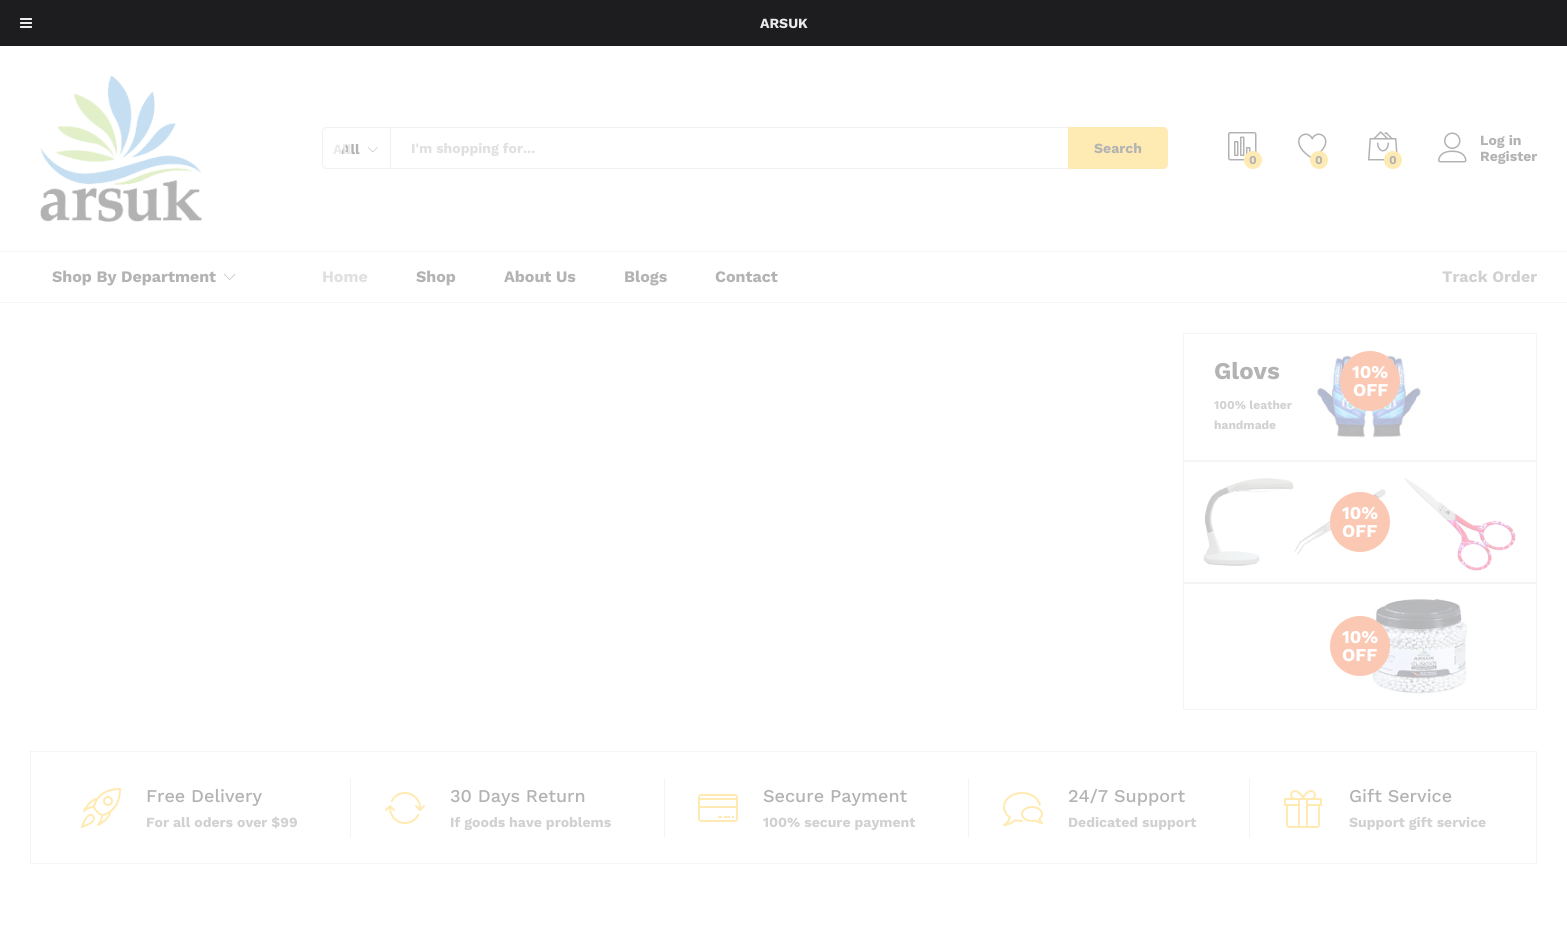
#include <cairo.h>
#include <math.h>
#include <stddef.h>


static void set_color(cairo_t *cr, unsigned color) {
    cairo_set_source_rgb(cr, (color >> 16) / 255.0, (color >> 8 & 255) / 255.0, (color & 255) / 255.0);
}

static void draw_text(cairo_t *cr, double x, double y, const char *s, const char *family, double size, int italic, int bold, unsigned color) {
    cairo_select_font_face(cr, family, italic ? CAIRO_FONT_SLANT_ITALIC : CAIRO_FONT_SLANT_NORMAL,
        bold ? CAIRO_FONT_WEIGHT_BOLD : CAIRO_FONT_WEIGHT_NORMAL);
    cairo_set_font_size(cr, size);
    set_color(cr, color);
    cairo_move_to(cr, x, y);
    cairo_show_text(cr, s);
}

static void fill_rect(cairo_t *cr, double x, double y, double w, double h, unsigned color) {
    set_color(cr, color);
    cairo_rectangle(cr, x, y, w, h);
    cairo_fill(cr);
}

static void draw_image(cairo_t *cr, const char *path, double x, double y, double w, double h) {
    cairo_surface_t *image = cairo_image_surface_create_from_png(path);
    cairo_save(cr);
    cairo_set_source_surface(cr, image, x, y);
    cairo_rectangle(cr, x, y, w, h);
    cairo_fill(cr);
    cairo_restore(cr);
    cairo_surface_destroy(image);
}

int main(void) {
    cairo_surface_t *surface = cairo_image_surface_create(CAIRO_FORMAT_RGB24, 1567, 952);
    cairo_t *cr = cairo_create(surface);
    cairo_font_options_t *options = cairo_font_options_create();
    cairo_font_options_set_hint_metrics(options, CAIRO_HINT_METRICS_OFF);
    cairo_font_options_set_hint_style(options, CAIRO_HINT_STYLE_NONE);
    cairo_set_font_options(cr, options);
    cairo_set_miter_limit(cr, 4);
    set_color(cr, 0xFFFFFF);
    cairo_paint(cr);
    fill_rect(cr, 0, 0, 1567, 46, 0x1D1D20);
    draw_image(cr, "assets/img1.png", 20, 18, 12, 10);
    draw_text(cr, 760, 28, "ARSUK", "Work Sans", 14, 0, 1, 0xEBEBEB);
    draw_image(cr, "assets/img2.png", 40, 75, 162, 147);
    cairo_new_path(cr);
    cairo_move_to(cr, 327, 127.5);
    cairo_line_to(cr, 390.5, 127.5);
    cairo_line_to(cr, 390.5, 168.5);
    cairo_line_to(cr, 327, 168.5);
    cairo_curve_to(cr, 324.5, 168.5, 322.5, 166.5, 322.5, 164);
    cairo_line_to(cr, 322.5, 132);
    cairo_curve_to(cr, 322.5, 129.5, 324.5, 127.5, 327, 127.5);
    cairo_close_path(cr);
    set_color(cr, 0xF0F0F0);
    cairo_set_line_width(cr, 1);
    cairo_stroke(cr);
    draw_text(cr, 341, 154, "All", "Work Sans", 14, 0, 1, 0xB3B3B3);
    draw_text(cr, 333, 154, "All", "Work Sans", 14, 0, 1, 0xEBEBEB);
    draw_image(cr, "assets/img3.png", 368, 147, 10, 6);
    fill_rect(cr, 391, 127, 677, 1, 0xF0F0F0);
    fill_rect(cr, 391, 168, 677, 1, 0xF0F0F0);
    draw_text(cr, 411, 153, "I'm shopping for...", "Work Sans", 14, 0, 1, 0xE0E0E0);
    set_color(cr, 0xFEEAB3);
    cairo_new_path(cr);
    cairo_move_to(cr, 1068, 127);
    cairo_line_to(cr, 1163, 127);
    cairo_curve_to(cr, 1166, 127, 1168, 129, 1168, 132);
    cairo_line_to(cr, 1168, 164);
    cairo_curve_to(cr, 1168, 167, 1166, 169, 1163, 169);
    cairo_line_to(cr, 1068, 169);
    cairo_close_path(cr);
    cairo_fill(cr);
    draw_text(cr, 1094, 153, "Search", "Work Sans", 14, 0, 1, 0xB3B3B3);
    draw_image(cr, "assets/img4.png", 1228, 132, 29, 29);
    set_color(cr, 0xFEEAB3);
    cairo_arc(cr, 1253, 160, 9, 0, 2 * M_PI);
    cairo_fill(cr);
    draw_text(cr, 1249, 164, "0", "Work Sans", 12, 0, 1, 0xB3B3B3);
    draw_image(cr, "assets/img5.png", 1298, 133, 29, 26);
    set_color(cr, 0xFEEAB3);
    cairo_arc(cr, 1319, 160, 9, 0, 2 * M_PI);
    cairo_fill(cr);
    draw_text(cr, 1315, 164, "0", "Work Sans", 12, 0, 1, 0xB3B3B3);
    draw_image(cr, "assets/img6.png", 1368, 131, 30, 30);
    set_color(cr, 0xFEEAB3);
    cairo_arc(cr, 1393, 160, 9, 0, 2 * M_PI);
    cairo_fill(cr);
    draw_text(cr, 1389, 164, "0", "Work Sans", 12, 0, 1, 0xB3B3B3);
    draw_image(cr, "assets/img7.png", 1438, 132, 29, 31);
    draw_text(cr, 1480, 145, "Log in", "Work Sans", 14, 0, 1, 0xB3B3B3);
    draw_text(cr, 1480, 161, "Register", "Work Sans", 14, 0, 1, 0xB3B3B3);
    fill_rect(cr, 0, 251, 1567, 1, 0xF6F6F6);
    fill_rect(cr, 0, 302, 1567, 1, 0xF6F6F6);
    draw_text(cr, 52, 282, "Shop By Department", "Work Sans", 16, 0, 1, 0xB3B3B3);
    draw_image(cr, "assets/img8.png", 224, 274, 12, 6);
    draw_text(cr, 322, 282, "Home", "Work Sans", 16, 0, 1, 0xE0E0E0);
    draw_text(cr, 416, 282, "Shop", "Work Sans", 16, 0, 1, 0xB3B3B3);
    draw_text(cr, 504, 282, "About Us", "Work Sans", 16, 0, 1, 0xB3B3B3);
    draw_text(cr, 624, 282, "Blogs", "Work Sans", 16, 0, 1, 0xB3B3B3);
    draw_text(cr, 715, 282, "Contact", "Work Sans", 16, 0, 1, 0xB3B3B3);
    draw_text(cr, 1442, 282, "Track Order", "Work Sans", 16, 0, 1, 0xD1D1D1);
    cairo_rectangle(cr, 1183.5, 333.5, 353, 127);
    set_color(cr, 0xF4F4F4);
    cairo_stroke(cr);
    draw_text(cr, 1214, 379, "Glovs", "Work Sans", 24, 0, 1, 0xB3B3B3);
    draw_text(cr, 1214, 409, "100% leather", "Work Sans", 12, 0, 1, 0xD1D1D1);
    draw_text(cr, 1214, 429, "handmade", "Work Sans", 12, 0, 1, 0xD1D1D1);
    draw_image(cr, "assets/img9.png", 1314, 355, 108, 88);
    set_color(cr, 0xFBC8B4);
    cairo_arc(cr, 1370, 381, 30, 0, 2 * M_PI);
    cairo_fill(cr);
    draw_text(cr, 1352, 378, "10%", "Work Sans", 18, 0, 1, 0xFFFFFF);
    draw_text(cr, 1353, 396, "OFF", "Work Sans", 18, 0, 1, 0xFFFFFF);
    cairo_rectangle(cr, 1183.5, 461.5, 353, 121);
    set_color(cr, 0xF4F4F4);
    cairo_stroke(cr);
    draw_image(cr, "assets/img10.png", 1203, 477, 313, 94);
    set_color(cr, 0xFBC8B4);
    cairo_arc(cr, 1360, 522, 30, 0, 2 * M_PI);
    cairo_fill(cr);
    draw_text(cr, 1342, 519, "10%", "Work Sans", 18, 0, 1, 0xFFFFFF);
    draw_text(cr, 1342, 537, "OFF", "Work Sans", 18, 0, 1, 0xFFFFFF);
    cairo_rectangle(cr, 1183.5, 583.5, 353, 126);
    set_color(cr, 0xF4F4F4);
    cairo_stroke(cr);
    draw_image(cr, "assets/img11.png", 1369, 598, 99, 98);
    set_color(cr, 0xFBC8B4);
    cairo_arc(cr, 1360, 646, 30, 0, 2 * M_PI);
    cairo_fill(cr);
    draw_text(cr, 1342, 643, "10%", "Work Sans", 18, 0, 1, 0xFFFFFF);
    draw_text(cr, 1342, 661, "OFF", "Work Sans", 18, 0, 1, 0xFFFFFF);
    cairo_rectangle(cr, 30.5, 751.5, 1506, 112);
    set_color(cr, 0xF4F4F4);
    cairo_stroke(cr);
    draw_image(cr, "assets/img12.png", 81, 788, 40, 40);
    draw_text(cr, 146, 802, "Free Delivery", "Work Sans Medium", 18, 0, 0, 0xB3B3B3);
    draw_text(cr, 146, 827, "For all oders over $99", "Work Sans", 14, 0, 1, 0xD1D1D1);
    fill_rect(cr, 350, 778, 1, 60, 0xF4F4F4);
    draw_image(cr, "assets/img13.png", 385, 792, 40, 32);
    draw_text(cr, 450, 802, "30 Days Return", "Work Sans Medium", 18, 0, 0, 0xB3B3B3);
    draw_text(cr, 450, 827, "If goods have problems", "Work Sans", 14, 0, 1, 0xD1D1D1);
    fill_rect(cr, 664, 778, 1, 60, 0xF4F4F4);
    draw_image(cr, "assets/img14.png", 698, 794, 40, 28);
    draw_text(cr, 763, 802, "Secure Payment", "Work Sans Medium", 18, 0, 0, 0xB3B3B3);
    draw_text(cr, 763, 827, "100% secure payment", "Work Sans", 14, 0, 1, 0xD1D1D1);
    fill_rect(cr, 968, 778, 1, 60, 0xF4F4F4);
    draw_image(cr, "assets/img15.png", 1003, 792, 40, 34);
    draw_text(cr, 1068, 802, "24/7 Support", "Work Sans Medium", 18, 0, 0, 0xB3B3B3);
    draw_text(cr, 1068, 827, "Dedicated support", "Work Sans", 14, 0, 1, 0xD1D1D1);
    fill_rect(cr, 1249, 778, 1, 60, 0xF4F4F4);
    draw_image(cr, "assets/img16.png", 1284, 790, 38, 38);
    draw_text(cr, 1349, 802, "Gift Service", "Work Sans Medium", 18, 0, 0, 0xB3B3B3);
    draw_text(cr, 1349, 827, "Support gift service", "Work Sans", 14, 0, 1, 0xD1D1D1);
    cairo_surface_write_to_png(surface, "output.png");
    cairo_font_options_destroy(options);
    cairo_destroy(cr);
    cairo_surface_destroy(surface);
    return 0;
}
